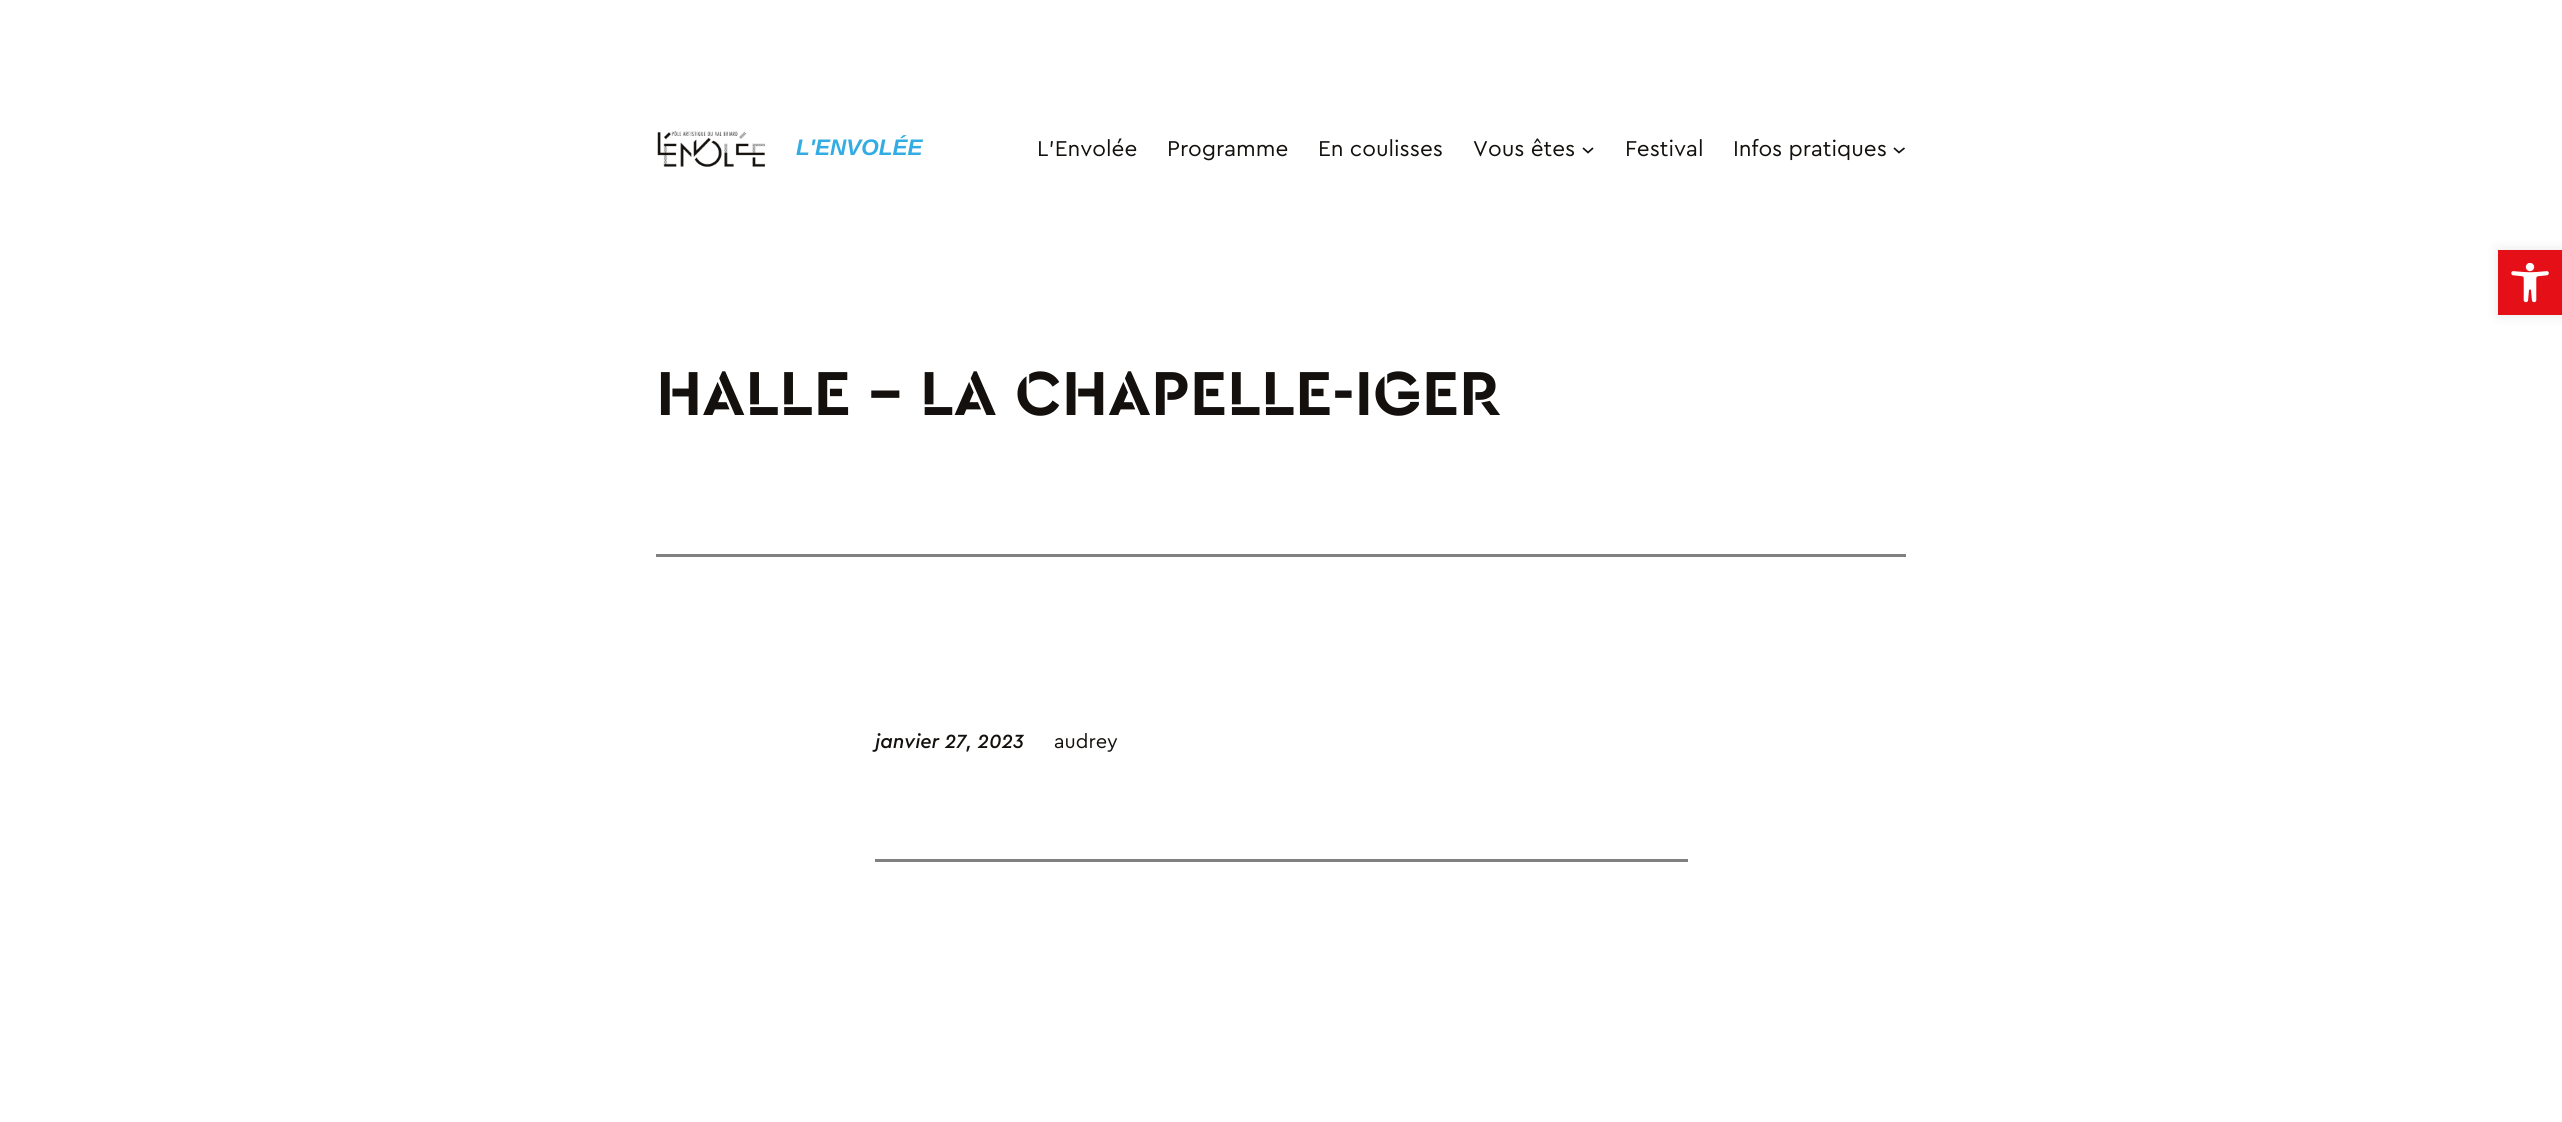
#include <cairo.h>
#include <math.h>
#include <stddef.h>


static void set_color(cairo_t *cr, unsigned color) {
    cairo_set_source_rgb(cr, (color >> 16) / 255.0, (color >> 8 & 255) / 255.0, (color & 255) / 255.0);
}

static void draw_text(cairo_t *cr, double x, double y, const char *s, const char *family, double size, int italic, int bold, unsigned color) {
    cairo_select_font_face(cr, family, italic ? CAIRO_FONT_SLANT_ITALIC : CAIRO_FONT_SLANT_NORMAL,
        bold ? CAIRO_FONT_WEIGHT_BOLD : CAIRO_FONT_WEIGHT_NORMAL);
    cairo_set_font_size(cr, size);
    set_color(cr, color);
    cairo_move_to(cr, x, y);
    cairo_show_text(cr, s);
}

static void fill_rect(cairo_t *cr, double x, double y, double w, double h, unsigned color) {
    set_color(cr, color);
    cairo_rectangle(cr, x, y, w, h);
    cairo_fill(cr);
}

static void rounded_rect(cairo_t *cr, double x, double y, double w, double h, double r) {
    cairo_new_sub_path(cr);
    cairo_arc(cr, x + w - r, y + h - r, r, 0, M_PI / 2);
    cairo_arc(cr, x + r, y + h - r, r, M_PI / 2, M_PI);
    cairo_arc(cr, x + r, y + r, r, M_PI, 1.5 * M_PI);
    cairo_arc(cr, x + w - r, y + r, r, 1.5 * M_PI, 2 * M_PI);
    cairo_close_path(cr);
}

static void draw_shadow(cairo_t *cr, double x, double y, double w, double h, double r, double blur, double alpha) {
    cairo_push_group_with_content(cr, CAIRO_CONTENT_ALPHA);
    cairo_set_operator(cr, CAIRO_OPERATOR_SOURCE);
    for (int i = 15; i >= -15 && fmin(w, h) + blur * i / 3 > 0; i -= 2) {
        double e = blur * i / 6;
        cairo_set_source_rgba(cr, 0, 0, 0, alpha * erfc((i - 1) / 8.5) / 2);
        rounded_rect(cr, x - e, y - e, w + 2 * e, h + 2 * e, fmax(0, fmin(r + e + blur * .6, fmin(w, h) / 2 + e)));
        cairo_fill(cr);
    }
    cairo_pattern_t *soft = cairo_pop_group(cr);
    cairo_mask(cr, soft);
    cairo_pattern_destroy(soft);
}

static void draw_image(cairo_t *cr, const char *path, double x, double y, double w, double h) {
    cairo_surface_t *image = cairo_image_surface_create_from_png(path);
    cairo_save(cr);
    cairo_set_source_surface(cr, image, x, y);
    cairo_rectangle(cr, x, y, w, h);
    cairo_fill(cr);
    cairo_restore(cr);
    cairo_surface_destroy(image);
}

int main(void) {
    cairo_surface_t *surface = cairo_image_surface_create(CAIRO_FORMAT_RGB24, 2562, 1122);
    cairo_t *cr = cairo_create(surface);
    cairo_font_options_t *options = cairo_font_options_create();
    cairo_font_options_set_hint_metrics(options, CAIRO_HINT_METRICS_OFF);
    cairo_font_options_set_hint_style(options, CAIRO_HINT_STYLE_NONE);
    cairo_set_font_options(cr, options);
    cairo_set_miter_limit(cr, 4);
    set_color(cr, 0xFFFFFF);
    cairo_paint(cr);
    draw_image(cr, "assets/img1.png", 657, 131, 109, 36);
    draw_text(cr, 796, 155, "L'ENVOLÉE", "Liberation Sans", 22.5, 1, 1, 0x33ACE3);
    draw_text(cr, 1037, 156, "L’Envolée", "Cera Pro", 22.5, 0, 0, 0x13100D);
    draw_text(cr, 1167, 156, "Programme", "Cera Pro", 22.5, 0, 0, 0x13100D);
    draw_text(cr, 1318, 156, "En coulisses", "Cera Pro", 22.5, 0, 0, 0x13100D);
    draw_text(cr, 1473, 156, "Vous êtes", "Cera Pro", 22.5, 0, 0, 0x13100D);
    cairo_new_path(cr);
    cairo_move_to(cr, 1583, 148);
    cairo_line_to(cr, 1588, 152.5);
    cairo_line_to(cr, 1593, 148);
    cairo_set_line_width(cr, 1.7);
    cairo_stroke(cr);
    draw_text(cr, 1625, 156, "Festival", "Cera Pro", 22.5, 0, 0, 0x13100D);
    draw_text(cr, 1733, 156, "Infos pratiques", "Cera Pro", 22.5, 0, 0, 0x13100D);
    cairo_new_path(cr);
    cairo_move_to(cr, 1894, 148);
    cairo_line_to(cr, 1899, 152.5);
    cairo_line_to(cr, 1904.5, 148);
    cairo_stroke(cr);
    draw_text(cr, 656, 415, "HALLE – LA CHAPELLE-IGER", "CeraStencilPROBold", 65, 0, 1, 0x13100D);
    fill_rect(cr, 656, 554, 1250, 3, 0x808080);
    draw_text(cr, 875, 748, "janvier 27, 2023", "Cera Pro Medium", 20, 1, 0, 0x13100D);
    draw_text(cr, 1054, 748, "audrey", "Cera Pro", 20, 0, 0, 0x13100D);
    fill_rect(cr, 875, 859, 813, 3, 0x808080);
    set_color(cr, 0x000000);
    draw_shadow(cr, 2498, 250, 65, 65, 0, 6, 0.1);
    fill_rect(cr, 2498, 250, 64, 65, 0xE40F17);
    draw_image(cr, "assets/img2.png", 2511, 263, 38, 40);
    cairo_surface_write_to_png(surface, "output.png");
    cairo_font_options_destroy(options);
    cairo_destroy(cr);
    cairo_surface_destroy(surface);
    return 0;
}
